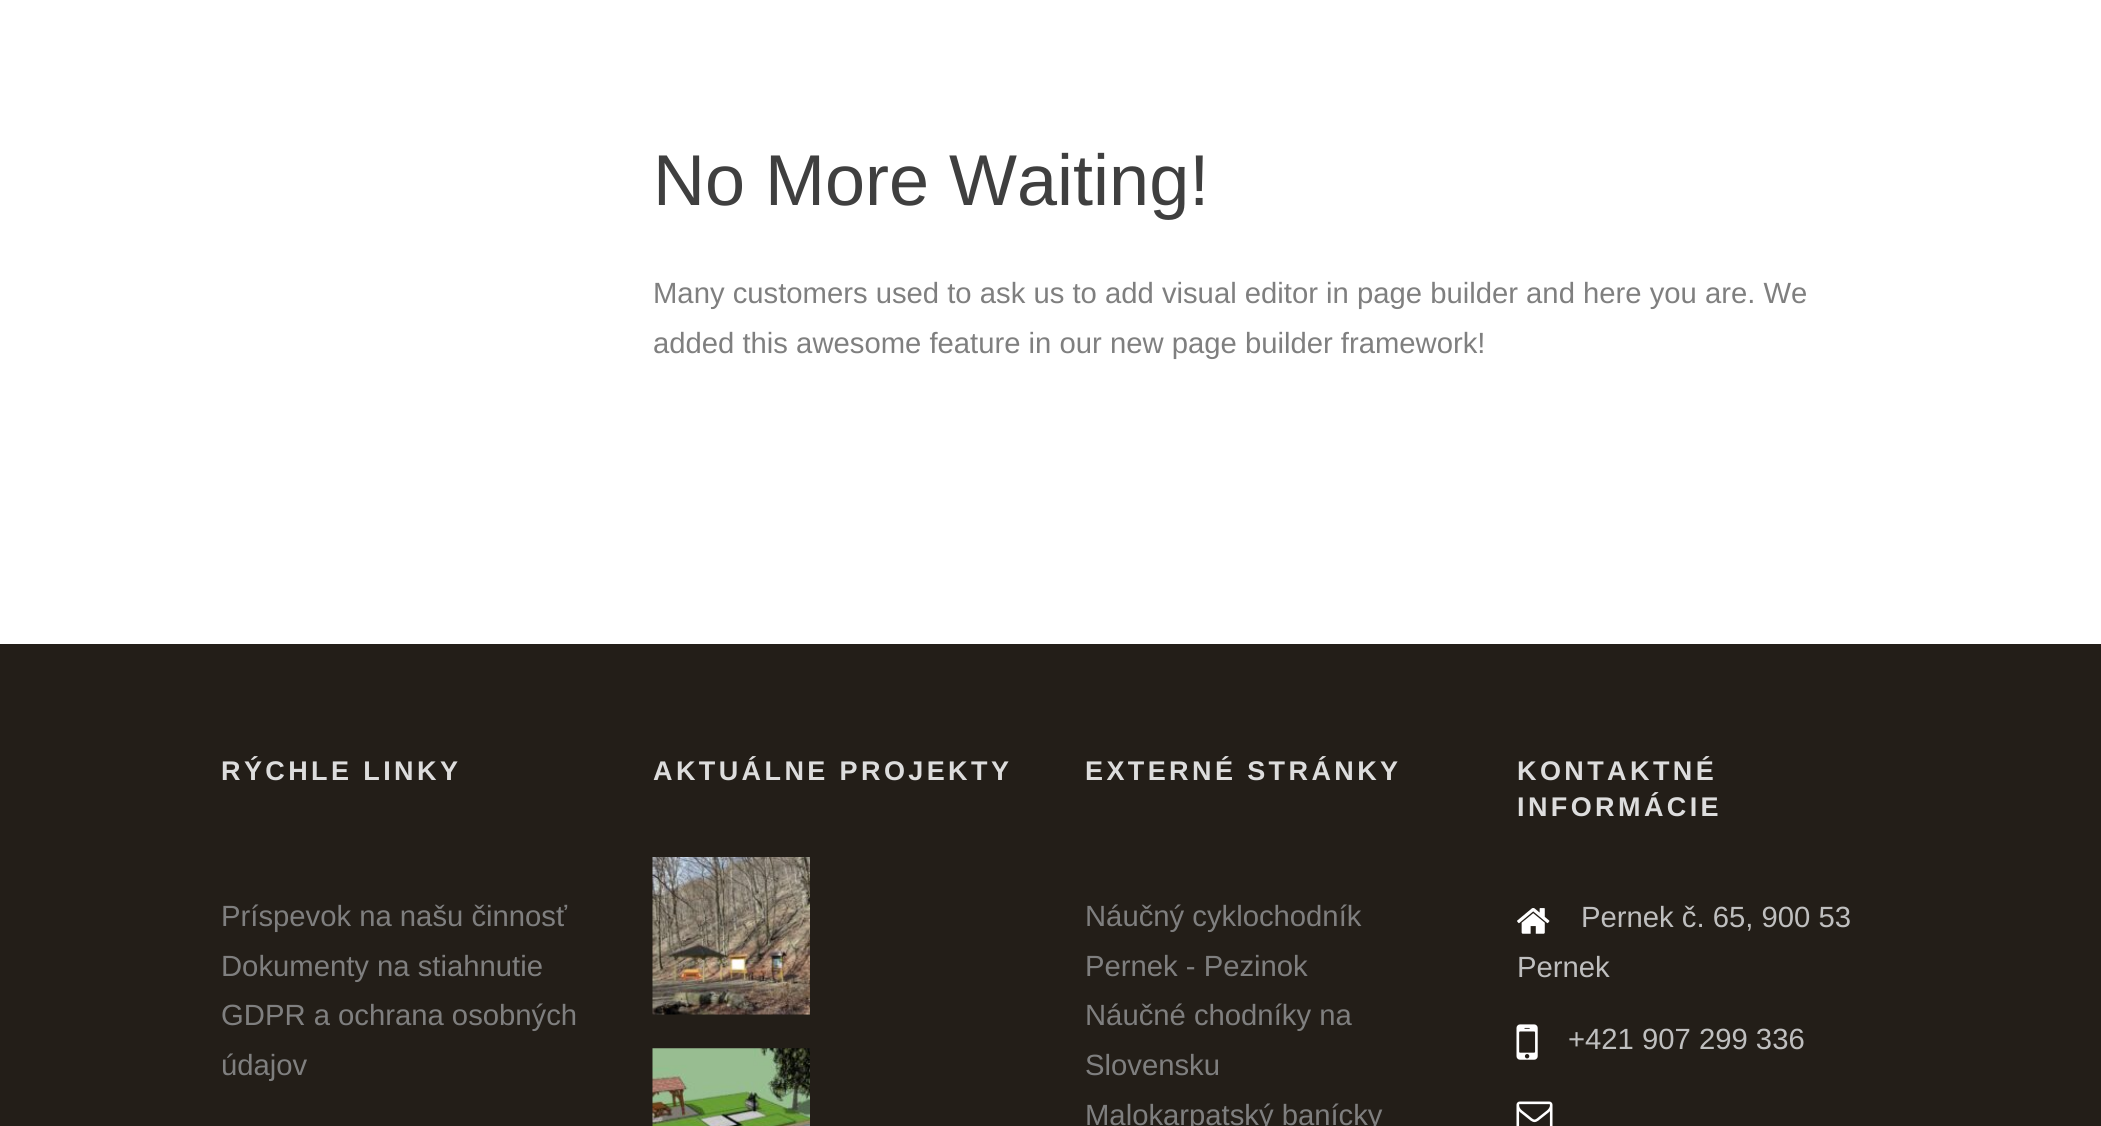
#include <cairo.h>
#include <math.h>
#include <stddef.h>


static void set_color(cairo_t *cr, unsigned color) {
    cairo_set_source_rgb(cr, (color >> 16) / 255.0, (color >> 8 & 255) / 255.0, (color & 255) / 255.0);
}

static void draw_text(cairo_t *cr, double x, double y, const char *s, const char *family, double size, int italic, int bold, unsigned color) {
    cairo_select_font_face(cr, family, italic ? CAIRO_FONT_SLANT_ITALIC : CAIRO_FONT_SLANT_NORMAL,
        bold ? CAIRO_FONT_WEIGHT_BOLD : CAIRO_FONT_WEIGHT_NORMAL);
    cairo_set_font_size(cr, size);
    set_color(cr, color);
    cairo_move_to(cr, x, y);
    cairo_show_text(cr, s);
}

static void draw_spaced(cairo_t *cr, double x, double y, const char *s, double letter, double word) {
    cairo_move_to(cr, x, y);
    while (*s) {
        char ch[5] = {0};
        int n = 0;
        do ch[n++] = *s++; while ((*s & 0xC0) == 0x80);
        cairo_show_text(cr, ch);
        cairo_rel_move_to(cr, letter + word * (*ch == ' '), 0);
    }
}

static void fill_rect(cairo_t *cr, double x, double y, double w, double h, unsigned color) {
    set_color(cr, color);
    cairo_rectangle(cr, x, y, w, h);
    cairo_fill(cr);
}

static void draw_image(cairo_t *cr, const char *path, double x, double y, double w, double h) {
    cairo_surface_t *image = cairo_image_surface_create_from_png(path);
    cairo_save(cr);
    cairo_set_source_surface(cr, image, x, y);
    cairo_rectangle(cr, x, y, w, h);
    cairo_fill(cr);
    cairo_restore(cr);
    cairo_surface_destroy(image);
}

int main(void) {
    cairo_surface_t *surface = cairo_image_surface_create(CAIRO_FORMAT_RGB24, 2101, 1126);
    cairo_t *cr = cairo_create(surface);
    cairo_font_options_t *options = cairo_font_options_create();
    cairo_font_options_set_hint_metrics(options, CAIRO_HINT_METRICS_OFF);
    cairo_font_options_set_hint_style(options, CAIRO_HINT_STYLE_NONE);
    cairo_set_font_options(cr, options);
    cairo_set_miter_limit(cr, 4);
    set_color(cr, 0xFFFFFF);
    cairo_paint(cr);
    draw_text(cr, 653, 205, "No More Waiting!", "Liberation Sans", 72, 0, 0, 0x3F3F3F);
    draw_text(cr, 653, 303, "Many customers used to ask us to add visual editor in page builder and here you are. We", "Liberation Sans", 29.25, 0, 0, 0x7F7F7F);
    draw_text(cr, 653, 353, "added this awesome feature in our new page builder framework!", "Liberation Sans", 29.25, 0, 0, 0x7F7F7F);
    fill_rect(cr, 0, 644, 2101, 482, 0x231E18);
    cairo_select_font_face(cr, "Liberation Sans", CAIRO_FONT_SLANT_NORMAL, CAIRO_FONT_WEIGHT_BOLD);
    cairo_set_font_size(cr, 27);
    set_color(cr, 0xDDDDDD);
    draw_spaced(cr, 221, 780, "RÝCHLE LINKY", 3.4, 0);
    draw_text(cr, 221, 926, "Príspevok na našu činnosť", "Liberation Sans", 29.25, 0, 0, 0x7F7F7F);
    draw_text(cr, 221, 976, "Dokumenty na stiahnutie", "Liberation Sans", 29.25, 0, 0, 0x7F7F7F);
    draw_text(cr, 221, 1025, "GDPR a ochrana osobných", "Liberation Sans", 29.25, 0, 0, 0x7F7F7F);
    draw_text(cr, 221, 1075, "údajov", "Liberation Sans", 29.25, 0, 0, 0x7F7F7F);
    cairo_select_font_face(cr, "Liberation Sans", CAIRO_FONT_SLANT_NORMAL, CAIRO_FONT_WEIGHT_BOLD);
    cairo_set_font_size(cr, 27);
    set_color(cr, 0xDDDDDD);
    draw_spaced(cr, 653, 780, "AKTUÁLNE PROJEKTY", 3.4, 0);
    draw_image(cr, "assets/img1.png", 652, 857, 158, 158);
    draw_image(cr, "assets/img2.png", 652, 1048, 158, 78);
    draw_spaced(cr, 1085, 780, "EXTERNÉ STRÁNKY", 3.4, 0);
    draw_text(cr, 1085, 926, "Náučný cyklochodník", "Liberation Sans", 29.25, 0, 0, 0x7F7F7F);
    draw_text(cr, 1085, 976, "Pernek - Pezinok", "Liberation Sans", 29.25, 0, 0, 0x7F7F7F);
    draw_text(cr, 1085, 1025, "Náučné chodníky na", "Liberation Sans", 29.25, 0, 0, 0x7F7F7F);
    draw_text(cr, 1085, 1075, "Slovensku", "Liberation Sans", 29.25, 0, 0, 0x7F7F7F);
    draw_text(cr, 1085, 1125, "Malokarpatský banícky", "Liberation Sans", 29.25, 0, 0, 0x7F7F7F);
    cairo_select_font_face(cr, "Liberation Sans", CAIRO_FONT_SLANT_NORMAL, CAIRO_FONT_WEIGHT_BOLD);
    cairo_set_font_size(cr, 27);
    set_color(cr, 0xDDDDDD);
    draw_spaced(cr, 1517, 780, "KONTAKTNÉ", 3.4, 0);
    draw_spaced(cr, 1517, 816, "INFORMÁCIE", 3.4, 0);
    draw_image(cr, "assets/img3.png", 1517, 908, 33, 26);
    draw_text(cr, 1581, 927, "Pernek č. 65, 900 53", "Liberation Sans", 29.25, 0, 0, 0xBFBFBF);
    draw_text(cr, 1517, 977, "Pernek", "Liberation Sans", 29.25, 0, 0, 0xBFBFBF);
    draw_image(cr, "assets/img4.png", 1516, 1024, 22, 36);
    draw_text(cr, 1568, 1049, "+421 907 299 336", "Liberation Sans", 29.25, 0, 0, 0xBFBFBF);
    draw_image(cr, "assets/img5.png", 1516, 1101, 37, 25);
    cairo_surface_write_to_png(surface, "output.png");
    cairo_font_options_destroy(options);
    cairo_destroy(cr);
    cairo_surface_destroy(surface);
    return 0;
}
